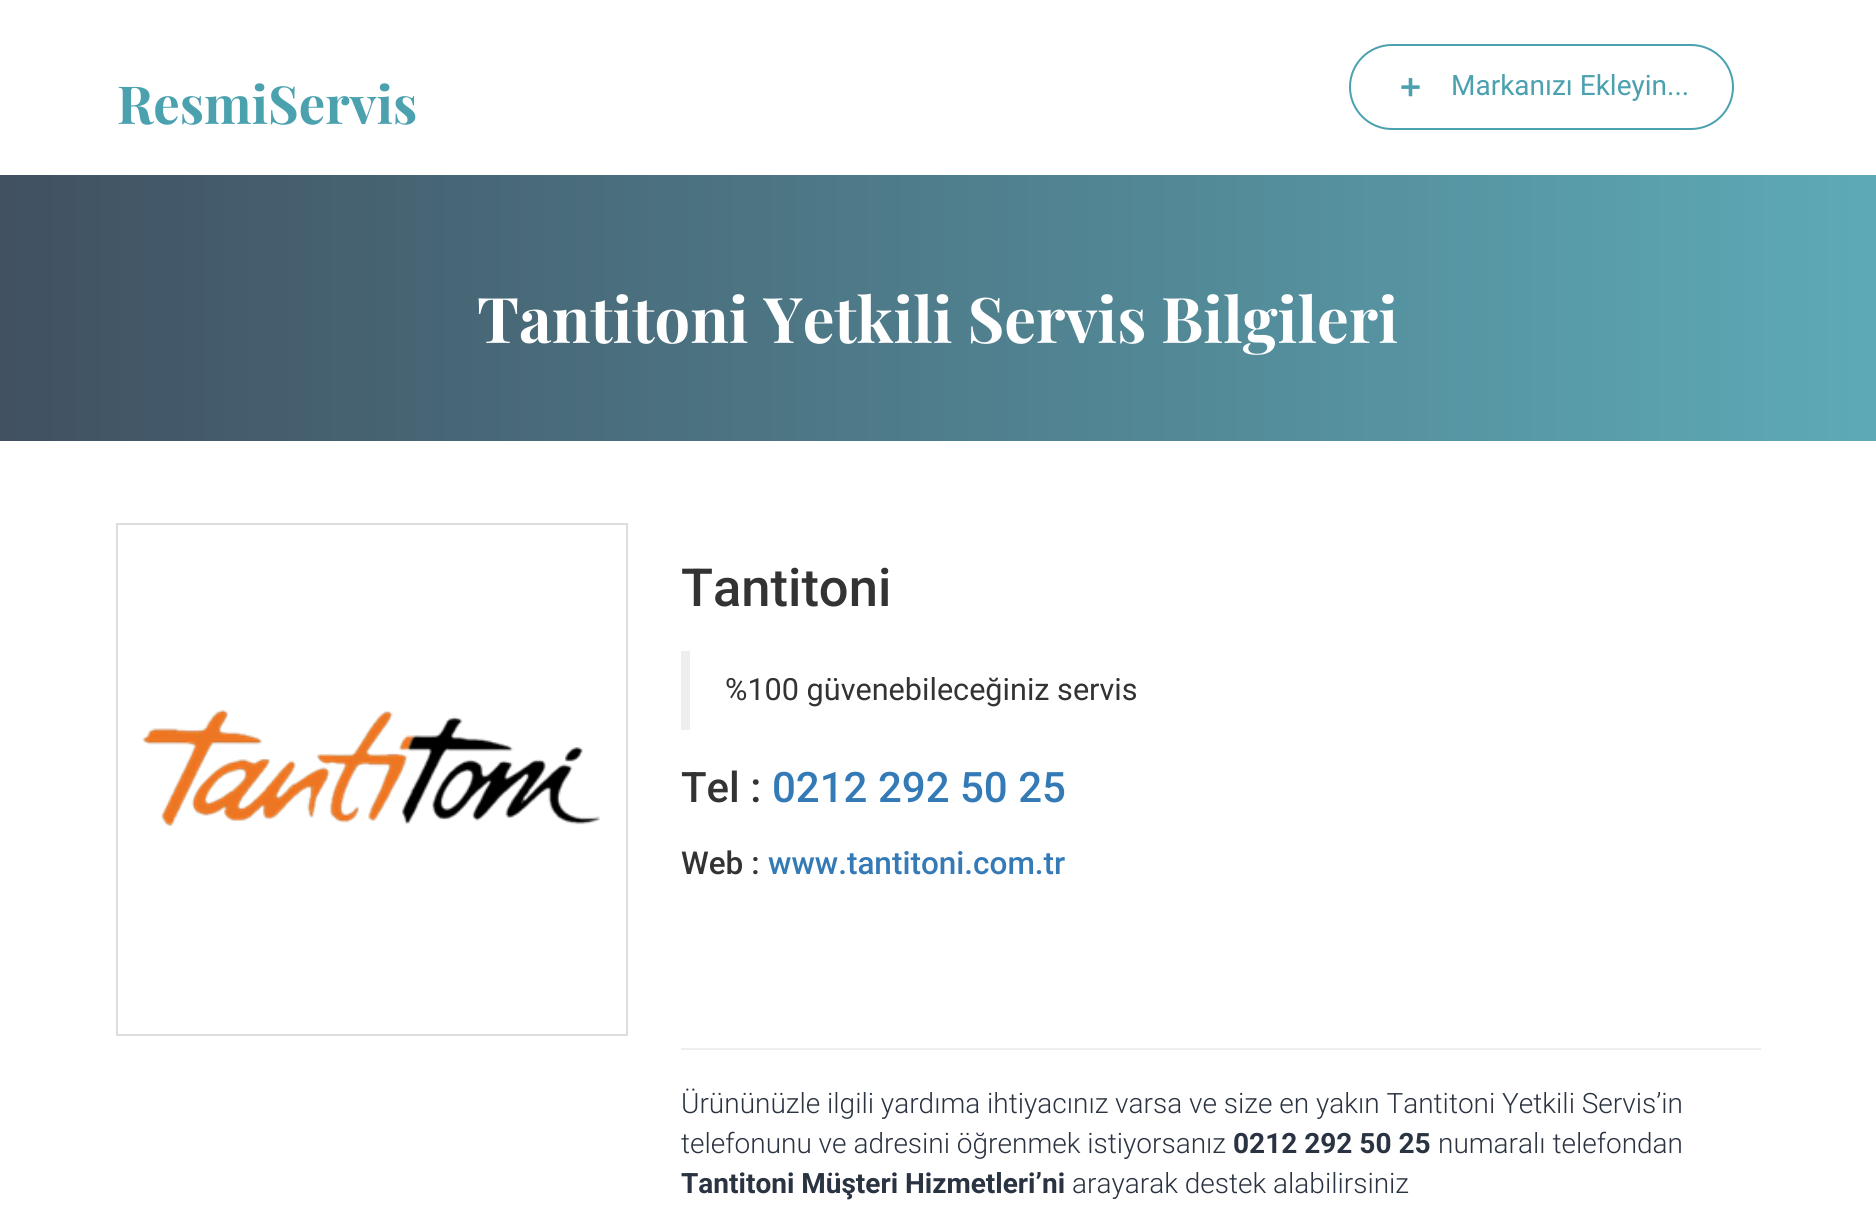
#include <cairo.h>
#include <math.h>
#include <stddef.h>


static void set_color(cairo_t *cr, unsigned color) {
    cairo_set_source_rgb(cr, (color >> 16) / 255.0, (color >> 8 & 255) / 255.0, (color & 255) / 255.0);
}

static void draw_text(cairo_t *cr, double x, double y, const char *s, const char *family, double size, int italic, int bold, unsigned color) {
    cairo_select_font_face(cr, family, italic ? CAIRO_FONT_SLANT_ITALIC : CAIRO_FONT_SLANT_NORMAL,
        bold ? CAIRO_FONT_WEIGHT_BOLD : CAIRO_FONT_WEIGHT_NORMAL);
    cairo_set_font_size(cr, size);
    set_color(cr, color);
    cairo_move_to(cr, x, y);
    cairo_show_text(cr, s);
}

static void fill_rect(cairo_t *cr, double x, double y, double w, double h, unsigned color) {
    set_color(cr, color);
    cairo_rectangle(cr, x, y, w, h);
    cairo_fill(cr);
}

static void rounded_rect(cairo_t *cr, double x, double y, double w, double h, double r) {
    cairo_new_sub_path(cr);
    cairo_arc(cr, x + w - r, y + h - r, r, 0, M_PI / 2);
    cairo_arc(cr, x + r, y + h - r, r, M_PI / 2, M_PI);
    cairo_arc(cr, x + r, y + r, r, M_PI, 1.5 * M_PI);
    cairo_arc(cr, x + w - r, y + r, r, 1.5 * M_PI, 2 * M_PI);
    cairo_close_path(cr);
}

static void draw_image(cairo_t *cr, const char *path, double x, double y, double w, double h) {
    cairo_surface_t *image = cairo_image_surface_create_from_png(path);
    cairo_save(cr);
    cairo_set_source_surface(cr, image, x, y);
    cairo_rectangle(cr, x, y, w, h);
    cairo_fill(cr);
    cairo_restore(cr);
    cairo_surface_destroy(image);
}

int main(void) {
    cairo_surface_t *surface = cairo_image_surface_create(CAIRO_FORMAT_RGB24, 1876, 1213);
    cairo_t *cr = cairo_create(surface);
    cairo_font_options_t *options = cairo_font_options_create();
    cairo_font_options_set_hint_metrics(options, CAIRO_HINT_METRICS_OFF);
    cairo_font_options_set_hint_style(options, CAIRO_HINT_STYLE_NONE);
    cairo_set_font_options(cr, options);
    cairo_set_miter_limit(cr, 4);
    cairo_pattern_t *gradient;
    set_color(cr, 0xFFFFFF);
    cairo_paint(cr);
    draw_text(cr, 117, 124, "ResmiServis", "Playfair Display", 52.5, 0, 1, 0x4CA1AF);
    rounded_rect(cr, 1350, 45, 383, 84, 42);
    cairo_stroke(cr);
    draw_image(cr, "assets/img1.png", 1401, 77, 19, 20);
    draw_text(cr, 1451, 95, "Markanızı Ekleyin...", "Roboto", 28, 0, 0, 0x4CA1AF);
    gradient = cairo_pattern_create_linear(1876, 308, 0, 308);
    cairo_pattern_add_color_stop_rgba(gradient, 0, 0.298, 0.631, 0.686, 0.9);
    cairo_pattern_add_color_stop_rgba(gradient, 1, 0.173, 0.243, 0.314, 0.9);
    cairo_set_source(cr, gradient);
    cairo_pattern_destroy(gradient);
    cairo_rectangle(cr, 0, 175, 1876, 266);
    cairo_fill(cr);
    draw_text(cr, 477, 343, "Tantitoni Yetkili Servis Bilgileri", "Playfair Display", 63, 0, 1, 0xFFFFFF);
    cairo_rectangle(cr, 117, 524, 510, 511);
    set_color(cr, 0xDDDDDD);
    cairo_stroke(cr);
    draw_image(cr, "assets/img2.png", 142, 709, 458, 117);
    draw_text(cr, 681, 606, "Tantitoni", "Roboto Medium", 52.5, 0, 0, 0x333333);
    fill_rect(cr, 681, 651, 9, 79, 0xEEEEEE);
    draw_text(cr, 725, 700, "%100 güvenebileceğiniz servis", "Roboto", 30.6, 0, 0, 0x333333);
    draw_text(cr, 681, 802, "Tel :", "Roboto Medium", 42, 0, 0, 0x333333);
    draw_text(cr, 772, 802, "0212 292 50 25", "Roboto Medium", 42, 0, 0, 0x337AB7);
    draw_text(cr, 681, 874, "Web :", "Roboto Medium", 31.5, 0, 0, 0x333333);
    draw_text(cr, 768, 874, "www.tantitoni.com.tr", "Roboto Medium", 31.5, 0, 0, 0x337AB7);
    fill_rect(cr, 681, 1048, 1080, 2, 0xEEEEEE);
    draw_text(cr, 681, 1113, "Ürününüzle ilgili yardıma ihtiyacınız varsa ve size en yakın Tantitoni Yetkili Servis’in", "Roboto Light", 28, 0, 0, 0x2A3341);
    draw_text(cr, 681, 1153, "telefonunu ve adresini öğrenmek istiyorsanız", "Roboto Light", 28, 0, 0, 0x2A3341);
    draw_text(cr, 1233, 1153, "0212 292 50 25", "Roboto", 28, 0, 1, 0x2A3341);
    draw_text(cr, 1438, 1153, "numaralı telefondan", "Roboto Light", 28, 0, 0, 0x2A3341);
    draw_text(cr, 681, 1193, "Tantitoni Müşteri Hizmetleri’ni", "Roboto", 28, 0, 1, 0x2A3341);
    draw_text(cr, 1072, 1193, "arayarak destek alabilirsiniz", "Roboto Light", 28, 0, 0, 0x2A3341);
    cairo_surface_write_to_png(surface, "output.png");
    cairo_font_options_destroy(options);
    cairo_destroy(cr);
    cairo_surface_destroy(surface);
    return 0;
}
